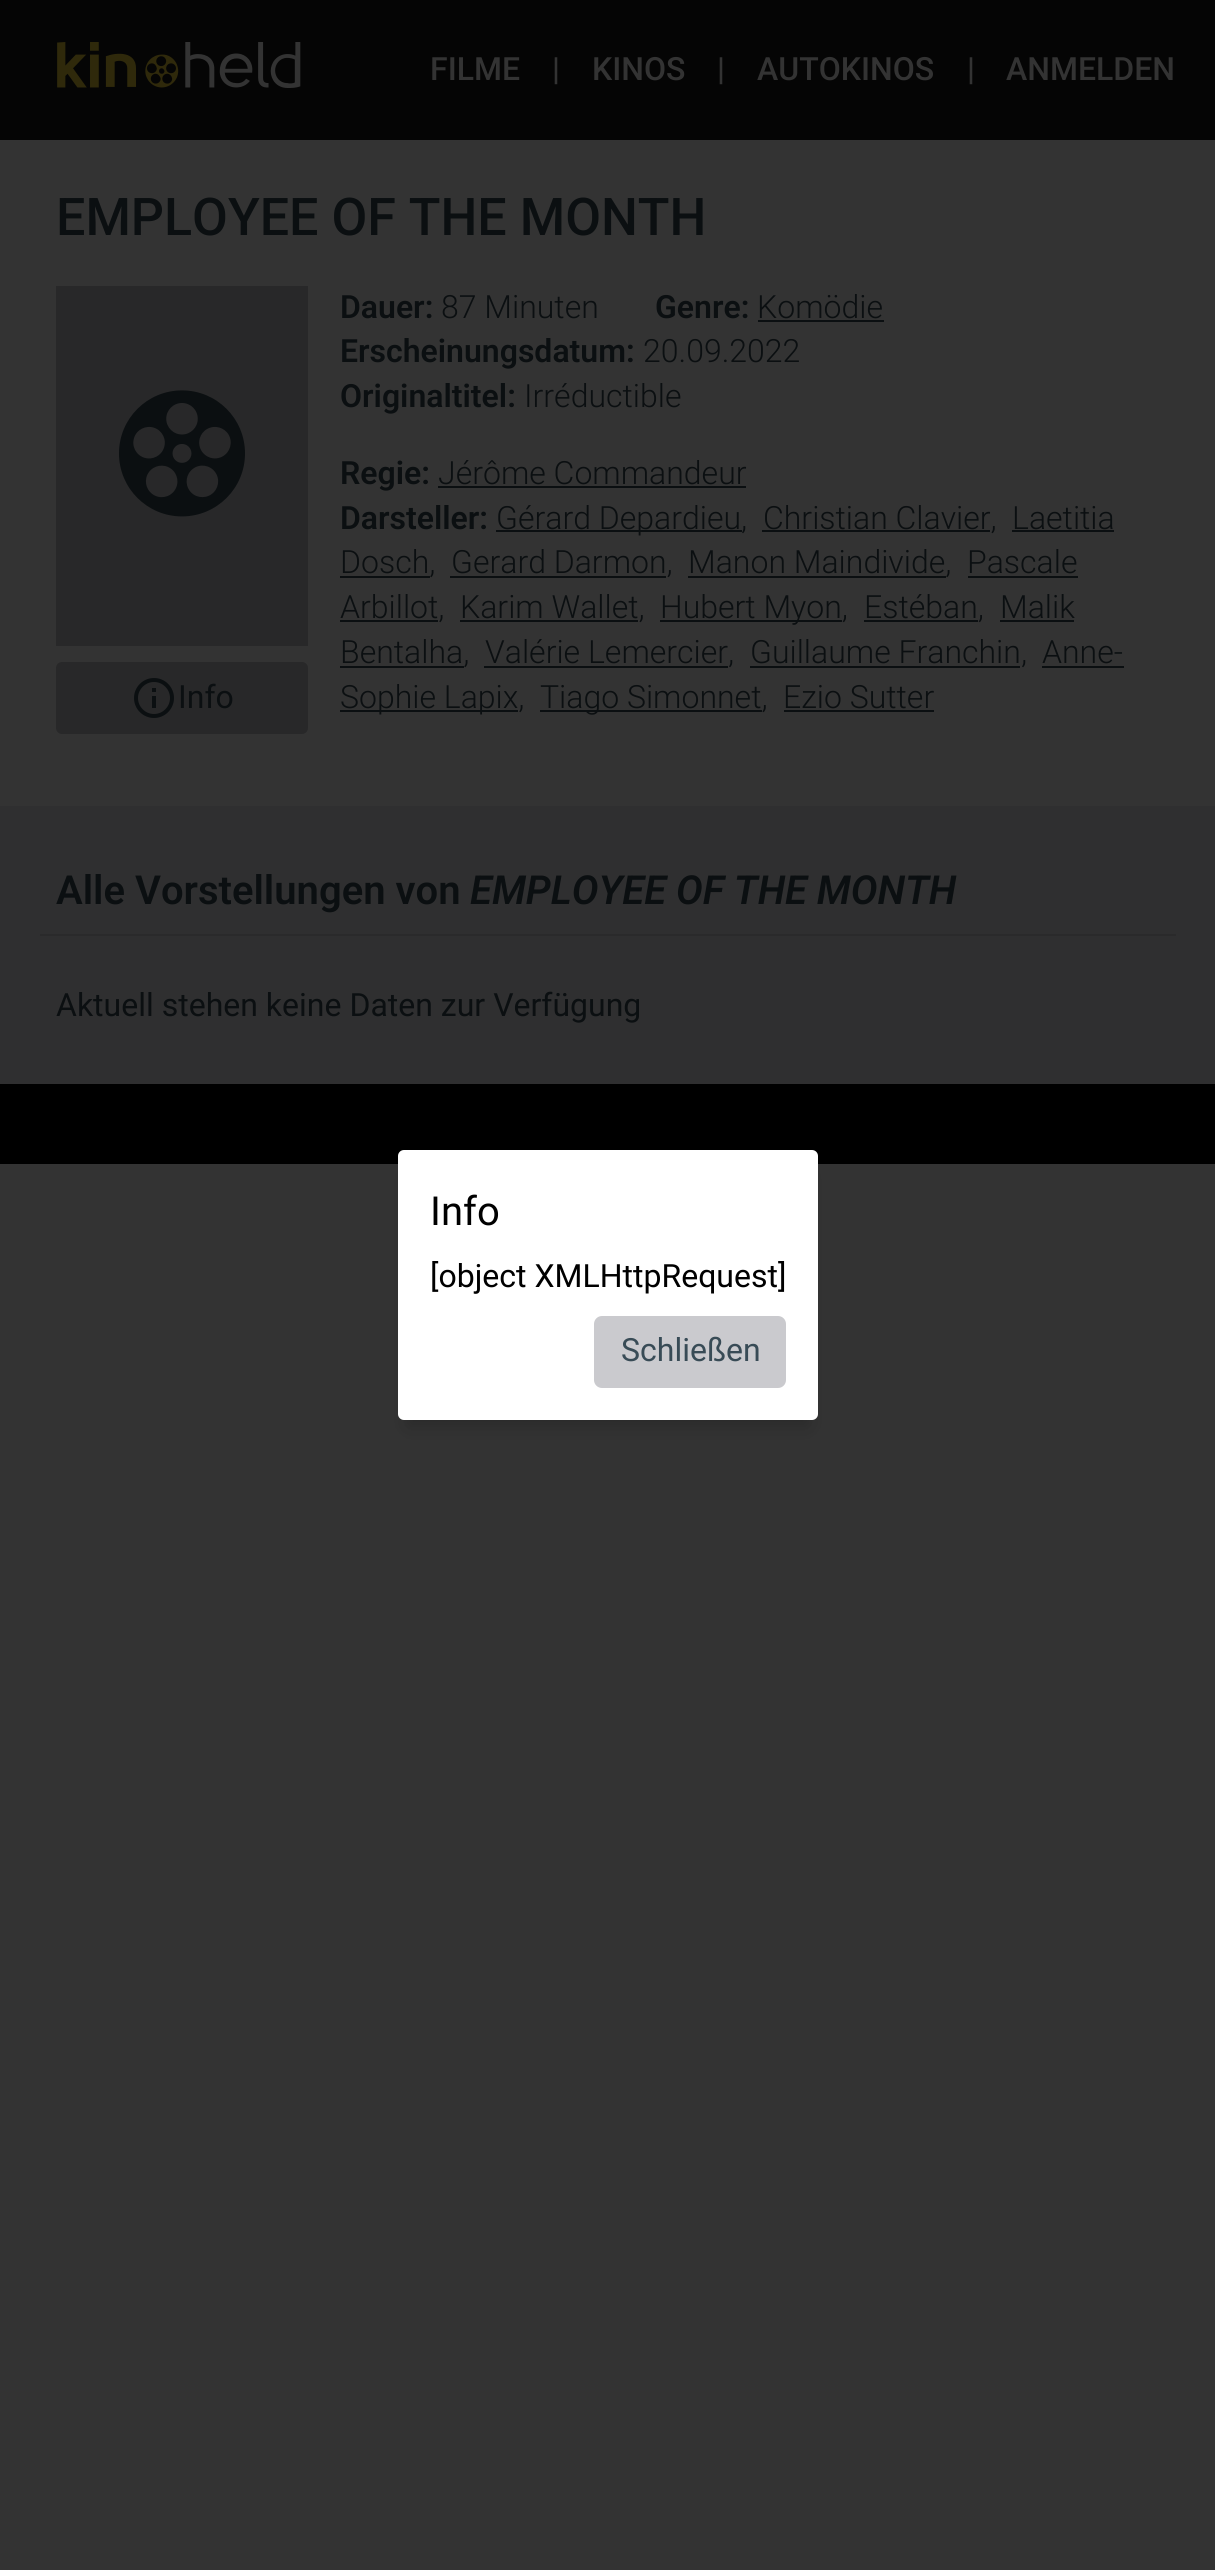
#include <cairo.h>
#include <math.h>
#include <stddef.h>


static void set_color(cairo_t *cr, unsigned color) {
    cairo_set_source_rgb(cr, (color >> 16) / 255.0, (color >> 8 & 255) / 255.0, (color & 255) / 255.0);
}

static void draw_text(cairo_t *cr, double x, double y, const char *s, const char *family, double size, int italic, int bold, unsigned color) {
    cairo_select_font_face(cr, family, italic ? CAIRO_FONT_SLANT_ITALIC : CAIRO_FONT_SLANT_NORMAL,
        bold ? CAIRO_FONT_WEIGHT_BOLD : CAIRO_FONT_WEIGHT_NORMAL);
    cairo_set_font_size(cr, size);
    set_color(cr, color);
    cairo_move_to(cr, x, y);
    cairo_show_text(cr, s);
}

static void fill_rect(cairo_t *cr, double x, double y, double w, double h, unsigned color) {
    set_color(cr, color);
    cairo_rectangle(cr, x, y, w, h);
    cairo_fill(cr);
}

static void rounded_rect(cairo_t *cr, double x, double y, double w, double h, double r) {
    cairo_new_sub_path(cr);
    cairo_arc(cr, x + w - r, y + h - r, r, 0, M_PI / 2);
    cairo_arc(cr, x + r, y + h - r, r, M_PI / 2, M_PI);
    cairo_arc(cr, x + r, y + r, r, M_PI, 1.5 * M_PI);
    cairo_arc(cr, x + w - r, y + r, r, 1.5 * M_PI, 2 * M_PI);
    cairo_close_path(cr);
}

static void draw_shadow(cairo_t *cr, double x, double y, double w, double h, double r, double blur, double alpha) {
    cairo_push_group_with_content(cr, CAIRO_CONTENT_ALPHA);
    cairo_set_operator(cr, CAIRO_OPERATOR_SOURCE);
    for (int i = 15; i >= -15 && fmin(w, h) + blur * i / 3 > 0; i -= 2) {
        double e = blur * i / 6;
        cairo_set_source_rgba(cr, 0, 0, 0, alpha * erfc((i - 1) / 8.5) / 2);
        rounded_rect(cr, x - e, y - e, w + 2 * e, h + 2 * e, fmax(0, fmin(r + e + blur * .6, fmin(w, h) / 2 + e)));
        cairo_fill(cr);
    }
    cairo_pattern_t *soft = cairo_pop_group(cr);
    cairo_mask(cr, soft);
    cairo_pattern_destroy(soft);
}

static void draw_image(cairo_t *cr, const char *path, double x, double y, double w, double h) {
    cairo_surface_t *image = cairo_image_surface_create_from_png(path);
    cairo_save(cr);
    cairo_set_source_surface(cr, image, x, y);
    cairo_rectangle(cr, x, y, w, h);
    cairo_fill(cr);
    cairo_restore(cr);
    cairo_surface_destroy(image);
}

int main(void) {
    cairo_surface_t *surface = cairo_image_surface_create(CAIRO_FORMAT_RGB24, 1215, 2570);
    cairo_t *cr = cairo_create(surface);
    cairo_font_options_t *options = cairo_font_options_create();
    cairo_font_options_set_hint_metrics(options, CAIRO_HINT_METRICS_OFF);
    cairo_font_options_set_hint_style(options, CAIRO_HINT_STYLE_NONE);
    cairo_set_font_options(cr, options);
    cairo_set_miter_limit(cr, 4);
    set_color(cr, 0x333333);
    cairo_paint(cr);
    fill_rect(cr, 0, 0, 1215, 140, 0x050505);
    draw_image(cr, "assets/img1.png", 57, 42, 244, 46);
    draw_text(cr, 430, 80, "FILME", "Roboto Medium", 32, 0, 0, 0x333333);
    draw_text(cr, 552, 80, "|", "Roboto Medium", 32, 0, 0, 0x333333);
    draw_text(cr, 592, 80, "KINOS", "Roboto Medium", 32, 0, 0, 0x333333);
    draw_text(cr, 717, 80, "|", "Roboto Medium", 32, 0, 0, 0x333333);
    draw_text(cr, 757, 80, "AUTOKINOS", "Roboto Medium", 32, 0, 0, 0x333333);
    draw_text(cr, 967, 80, "|", "Roboto Medium", 32, 0, 0, 0x333333);
    draw_text(cr, 1006, 80, "ANMELDEN", "Roboto Medium", 32, 0, 0, 0x333333);
    draw_text(cr, 56, 235, "EMPLOYEE OF THE MONTH", "Roboto Medium", 52, 0, 0, 0x0B0F11);
    fill_rect(cr, 56, 286, 252, 360, 0x282829);
    draw_image(cr, "assets/img2.png", 119, 390, 126, 127);
    rounded_rect(cr, 57, 663, 250, 70, 5);
    cairo_fill_preserve(cr);
    cairo_stroke(cr);
    draw_image(cr, "assets/img3.png", 134, 678, 40, 40);
    draw_text(cr, 178, 708, "Info", "Roboto", 32, 0, 0, 0x0B0F11);
    draw_text(cr, 340, 318, "Dauer:", "Roboto SemiBold", 32, 0, 0, 0x0B0F11);
    draw_text(cr, 441, 318, "87 Minuten", "Roboto Light", 32, 0, 0, 0x0B0F11);
    draw_text(cr, 655, 318, "Genre:", "Roboto SemiBold", 32, 0, 0, 0x0B0F11);
    draw_text(cr, 757, 318, "Komödie", "Roboto Light", 32, 0, 0, 0x0B0F11);
    fill_rect(cr, 758, 320, 126, 2, 0x0B0F11);
    draw_text(cr, 340, 362, "Erscheinungsdatum:", "Roboto SemiBold", 32, 0, 0, 0x0B0F11);
    draw_text(cr, 643, 362, "20.09.2022", "Roboto Light", 32, 0, 0, 0x0B0F11);
    draw_text(cr, 340, 407, "Originaltitel:", "Roboto SemiBold", 32, 0, 0, 0x0B0F11);
    draw_text(cr, 524, 407, "Irréductible", "Roboto Light", 32, 0, 0, 0x0B0F11);
    draw_text(cr, 340, 484, "Regie:", "Roboto SemiBold", 32, 0, 0, 0x0B0F11);
    draw_text(cr, 438, 484, "Jérôme Commandeur", "Roboto Light", 32, 0, 0, 0x0B0F11);
    fill_rect(cr, 438, 486, 308, 2, 0x0B0F11);
    draw_text(cr, 340, 529, "Darsteller:", "Roboto SemiBold", 32, 0, 0, 0x0B0F11);
    fill_rect(cr, 496, 530, 246, 2, 0x0B0F11);
    draw_text(cr, 496, 529, "Gérard Depardieu,", "Roboto Light", 32, 0, 0, 0x0B0F11);
    fill_rect(cr, 762, 530, 228, 2, 0x0B0F11);
    draw_text(cr, 763, 529, "Christian Clavier,", "Roboto Light", 32, 0, 0, 0x0B0F11);
    draw_text(cr, 1012, 529, "Laetitia", "Roboto Light", 32, 0, 0, 0x0B0F11);
    fill_rect(cr, 1012, 530, 102, 2, 0x0B0F11);
    fill_rect(cr, 340, 576, 90, 2, 0x0B0F11);
    draw_text(cr, 340, 573, "Dosch,", "Roboto Light", 32, 0, 0, 0x0B0F11);
    fill_rect(cr, 450, 576, 216, 2, 0x0B0F11);
    draw_text(cr, 451, 573, "Gerard Darmon,", "Roboto Light", 32, 0, 0, 0x0B0F11);
    fill_rect(cr, 688, 576, 258, 2, 0x0B0F11);
    draw_text(cr, 688, 573, "Manon Maindivide,", "Roboto Light", 32, 0, 0, 0x0B0F11);
    draw_text(cr, 967, 573, "Pascale", "Roboto Light", 32, 0, 0, 0x0B0F11);
    fill_rect(cr, 968, 576, 110, 2, 0x0B0F11);
    fill_rect(cr, 340, 620, 98, 2, 0x0B0F11);
    draw_text(cr, 340, 618, "Arbillot,", "Roboto Light", 32, 0, 0, 0x0B0F11);
    fill_rect(cr, 460, 620, 178, 2, 0x0B0F11);
    draw_text(cr, 460, 618, "Karim Wallet,", "Roboto Light", 32, 0, 0, 0x0B0F11);
    fill_rect(cr, 660, 620, 182, 2, 0x0B0F11);
    draw_text(cr, 660, 618, "Hubert Myon,", "Roboto Light", 32, 0, 0, 0x0B0F11);
    fill_rect(cr, 864, 620, 114, 2, 0x0B0F11);
    draw_text(cr, 864, 618, "Estéban,", "Roboto Light", 32, 0, 0, 0x0B0F11);
    draw_text(cr, 1000, 618, "Malik", "Roboto Light", 32, 0, 0, 0x0B0F11);
    fill_rect(cr, 1000, 620, 74, 2, 0x0B0F11);
    fill_rect(cr, 340, 666, 124, 2, 0x0B0F11);
    draw_text(cr, 340, 663, "Bentalha,", "Roboto Light", 32, 0, 0, 0x0B0F11);
    fill_rect(cr, 484, 666, 244, 2, 0x0B0F11);
    draw_text(cr, 485, 663, "Valérie Lemercier,", "Roboto Light", 32, 0, 0, 0x0B0F11);
    fill_rect(cr, 750, 666, 270, 2, 0x0B0F11);
    draw_text(cr, 750, 663, "Guillaume Franchin,", "Roboto Light", 32, 0, 0, 0x0B0F11);
    draw_text(cr, 1042, 663, "Anne-", "Roboto Light", 32, 0, 0, 0x0B0F11);
    fill_rect(cr, 1042, 666, 82, 2, 0x0B0F11);
    fill_rect(cr, 340, 710, 178, 2, 0x0B0F11);
    draw_text(cr, 340, 708, "Sophie Lapix,", "Roboto Light", 32, 0, 0, 0x0B0F11);
    fill_rect(cr, 540, 710, 222, 2, 0x0B0F11);
    draw_text(cr, 540, 708, "Tiago Simonnet,", "Roboto Light", 32, 0, 0, 0x0B0F11);
    draw_text(cr, 783, 708, "Ezio Sutter", "Roboto Light", 32, 0, 0, 0x0B0F11);
    fill_rect(cr, 784, 710, 150, 2, 0x0B0F11);
    fill_rect(cr, 0, 806, 1215, 278, 0x2F2F30);
    fill_rect(cr, 40, 934, 1136, 2, 0x2A2A2B);
    draw_text(cr, 56, 904, "Alle Vorstellungen von", "Roboto SemiBold", 40, 0, 0, 0x0B0F11);
    draw_text(cr, 470, 904, "EMPLOYEE OF THE MONTH", "Roboto SemiBold", 40, 1, 0, 0x0B0F11);
    draw_text(cr, 56, 1016, "Aktuell stehen keine Daten zur Verfügung", "Roboto", 32, 0, 0, 0x0B0F11);
    fill_rect(cr, 0, 1084, 1215, 80, 0x000000);
    set_color(cr, 0x000000);
    draw_shadow(cr, 408, 1176, 400, 250, 0, 9, 0.2);
    set_color(cr, 0xFFFFFF);
    rounded_rect(cr, 398, 1150, 420, 270, 6);
    cairo_fill(cr);
    draw_text(cr, 430, 1225, "Info", "Roboto", 40, 0, 0, 0x000000);
    draw_text(cr, 430, 1287, "[object XMLHttpRequest]", "Roboto", 32, 0, 0, 0x000000);
    set_color(cr, 0xCACACE);
    rounded_rect(cr, 595, 1317, 190, 70, 7);
    cairo_fill_preserve(cr);
    cairo_stroke(cr);
    draw_text(cr, 621, 1361, "Schließen", "Roboto", 32, 0, 0, 0x384B56);
    cairo_surface_write_to_png(surface, "output.png");
    cairo_font_options_destroy(options);
    cairo_destroy(cr);
    cairo_surface_destroy(surface);
    return 0;
}
